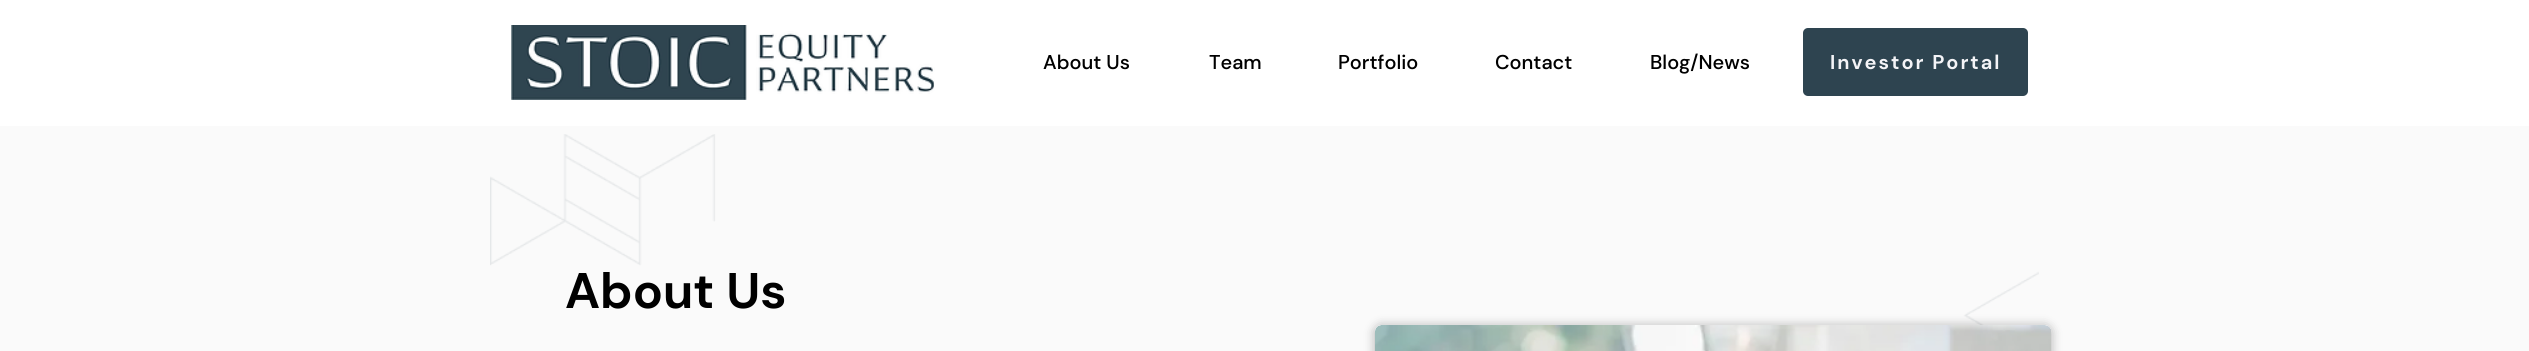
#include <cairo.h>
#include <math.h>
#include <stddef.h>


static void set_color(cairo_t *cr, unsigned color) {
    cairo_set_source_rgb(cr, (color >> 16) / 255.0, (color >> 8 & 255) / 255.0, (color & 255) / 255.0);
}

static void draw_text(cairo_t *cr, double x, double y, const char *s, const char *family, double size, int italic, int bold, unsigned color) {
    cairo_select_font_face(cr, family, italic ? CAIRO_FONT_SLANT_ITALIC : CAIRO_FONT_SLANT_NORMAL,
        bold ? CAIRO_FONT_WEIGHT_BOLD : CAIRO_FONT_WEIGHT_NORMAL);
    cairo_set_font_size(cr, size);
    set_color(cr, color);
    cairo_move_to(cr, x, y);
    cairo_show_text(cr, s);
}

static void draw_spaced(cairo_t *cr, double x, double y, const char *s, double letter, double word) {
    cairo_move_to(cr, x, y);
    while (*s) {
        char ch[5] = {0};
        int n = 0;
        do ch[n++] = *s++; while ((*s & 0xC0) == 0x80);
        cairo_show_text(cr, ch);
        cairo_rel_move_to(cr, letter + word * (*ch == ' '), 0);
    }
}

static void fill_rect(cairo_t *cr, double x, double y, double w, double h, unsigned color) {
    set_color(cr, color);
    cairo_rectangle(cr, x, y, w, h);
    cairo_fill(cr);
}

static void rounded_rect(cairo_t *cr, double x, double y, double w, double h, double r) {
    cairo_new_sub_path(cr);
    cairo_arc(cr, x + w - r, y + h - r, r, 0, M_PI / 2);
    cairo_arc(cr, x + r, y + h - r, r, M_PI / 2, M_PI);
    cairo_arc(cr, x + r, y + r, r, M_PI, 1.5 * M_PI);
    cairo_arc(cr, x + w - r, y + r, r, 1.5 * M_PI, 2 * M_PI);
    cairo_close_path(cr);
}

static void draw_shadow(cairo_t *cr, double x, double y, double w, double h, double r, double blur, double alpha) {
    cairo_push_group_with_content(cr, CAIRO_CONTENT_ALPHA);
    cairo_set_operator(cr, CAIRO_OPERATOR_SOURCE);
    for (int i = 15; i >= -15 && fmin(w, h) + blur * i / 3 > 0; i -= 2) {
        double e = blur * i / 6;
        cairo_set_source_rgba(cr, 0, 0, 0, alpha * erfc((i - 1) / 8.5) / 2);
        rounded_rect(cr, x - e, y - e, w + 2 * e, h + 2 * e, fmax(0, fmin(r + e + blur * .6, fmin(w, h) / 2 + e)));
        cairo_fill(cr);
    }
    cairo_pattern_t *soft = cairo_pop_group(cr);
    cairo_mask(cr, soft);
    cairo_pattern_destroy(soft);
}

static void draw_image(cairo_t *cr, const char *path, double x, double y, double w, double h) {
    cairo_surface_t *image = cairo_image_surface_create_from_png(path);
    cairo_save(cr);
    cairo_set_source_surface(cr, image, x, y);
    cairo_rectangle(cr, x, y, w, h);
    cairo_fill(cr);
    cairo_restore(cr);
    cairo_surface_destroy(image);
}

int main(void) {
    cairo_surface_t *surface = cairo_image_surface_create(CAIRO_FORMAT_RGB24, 2529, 351);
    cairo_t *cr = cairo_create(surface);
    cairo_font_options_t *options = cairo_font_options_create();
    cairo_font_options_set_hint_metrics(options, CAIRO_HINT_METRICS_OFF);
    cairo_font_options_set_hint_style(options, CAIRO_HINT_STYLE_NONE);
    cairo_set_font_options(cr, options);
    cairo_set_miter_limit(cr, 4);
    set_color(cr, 0xFFFFFF);
    cairo_paint(cr);
    draw_image(cr, "assets/img1.png", 511, 25, 424, 75);
    draw_text(cr, 1043, 69, "About Us", "DM Sans Medium", 20, 0, 0, 0x000000);
    draw_text(cr, 1209, 69, "Team", "DM Sans Medium", 20, 0, 0, 0x000000);
    draw_text(cr, 1338, 69, "Portfolio", "DM Sans Medium", 20, 0, 0, 0x000000);
    draw_text(cr, 1495, 69, "Contact", "DM Sans Medium", 20, 0, 0, 0x000000);
    draw_text(cr, 1650, 69, "Blog/News", "DM Sans Medium", 20, 0, 0, 0x000000);
    set_color(cr, 0x2E4450);
    rounded_rect(cr, 1803, 28, 225, 68, 5);
    cairo_fill(cr);
    cairo_select_font_face(cr, "DM Sans", CAIRO_FONT_SLANT_NORMAL, CAIRO_FONT_WEIGHT_BOLD);
    set_color(cr, 0xF4F4F7);
    draw_spaced(cr, 1830, 69, "Investor Portal", 2, 0);
    fill_rect(cr, 0, 126, 2529, 225, 0xFAFAFA);
    draw_image(cr, "assets/img2.png", 490, 134, 1549, 191);
    draw_text(cr, 565, 308, "About Us", "DM Sans", 50, 0, 1, 0x000000);
    set_color(cr, 0x000000);
    draw_shadow(cr, 1375, 326, 676, 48, 6, 5.5, 0.31);
    set_color(cr, 0xF4F4F7);
    rounded_rect(cr, 1375, 325, 676, 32, 6);
    cairo_fill(cr);
    draw_image(cr, "assets/img3.png", 1375, 325, 676, 26);
    cairo_surface_write_to_png(surface, "output.png");
    cairo_font_options_destroy(options);
    cairo_destroy(cr);
    cairo_surface_destroy(surface);
    return 0;
}
